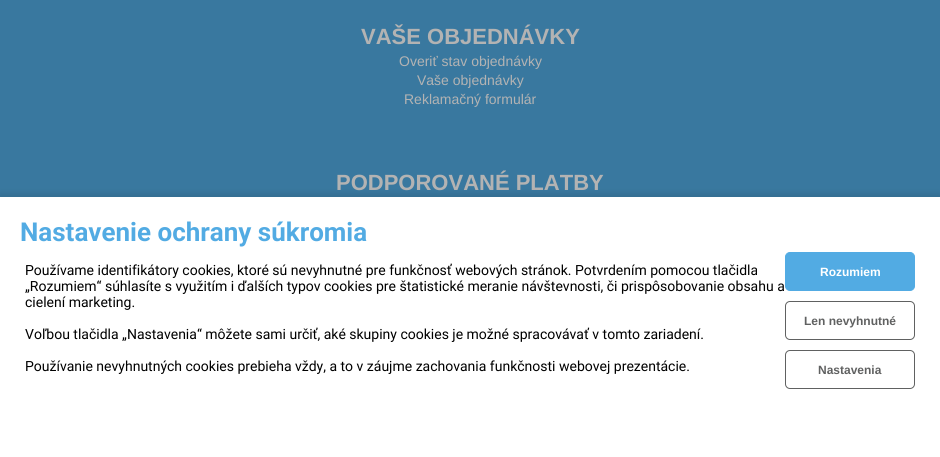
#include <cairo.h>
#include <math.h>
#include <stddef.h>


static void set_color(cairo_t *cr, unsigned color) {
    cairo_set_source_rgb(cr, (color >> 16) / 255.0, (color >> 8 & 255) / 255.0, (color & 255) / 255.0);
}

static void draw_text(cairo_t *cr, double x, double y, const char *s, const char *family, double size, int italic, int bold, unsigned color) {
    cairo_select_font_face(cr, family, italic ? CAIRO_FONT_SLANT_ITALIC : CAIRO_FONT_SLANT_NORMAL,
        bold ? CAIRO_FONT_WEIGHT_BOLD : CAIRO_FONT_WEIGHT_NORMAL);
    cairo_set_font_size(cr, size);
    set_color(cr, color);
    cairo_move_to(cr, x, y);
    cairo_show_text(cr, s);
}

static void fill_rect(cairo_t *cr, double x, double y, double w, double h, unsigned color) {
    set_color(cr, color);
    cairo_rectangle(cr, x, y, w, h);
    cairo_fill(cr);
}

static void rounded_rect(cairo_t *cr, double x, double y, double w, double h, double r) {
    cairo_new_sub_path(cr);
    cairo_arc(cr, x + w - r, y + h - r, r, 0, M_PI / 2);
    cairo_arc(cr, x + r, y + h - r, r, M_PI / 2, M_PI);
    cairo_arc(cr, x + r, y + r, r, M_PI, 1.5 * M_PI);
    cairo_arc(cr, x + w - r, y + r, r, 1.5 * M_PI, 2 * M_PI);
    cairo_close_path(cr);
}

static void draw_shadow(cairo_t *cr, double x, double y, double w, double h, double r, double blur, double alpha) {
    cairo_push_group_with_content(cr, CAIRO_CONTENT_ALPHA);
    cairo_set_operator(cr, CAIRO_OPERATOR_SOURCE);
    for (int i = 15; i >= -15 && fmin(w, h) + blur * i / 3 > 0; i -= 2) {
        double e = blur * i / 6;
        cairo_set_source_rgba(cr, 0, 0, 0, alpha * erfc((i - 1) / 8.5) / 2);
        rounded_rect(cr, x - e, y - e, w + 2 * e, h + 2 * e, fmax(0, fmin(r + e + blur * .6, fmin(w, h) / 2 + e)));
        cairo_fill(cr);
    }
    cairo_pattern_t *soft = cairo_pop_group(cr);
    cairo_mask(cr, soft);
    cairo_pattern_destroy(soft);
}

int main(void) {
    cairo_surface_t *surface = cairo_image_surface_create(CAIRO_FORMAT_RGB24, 940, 457);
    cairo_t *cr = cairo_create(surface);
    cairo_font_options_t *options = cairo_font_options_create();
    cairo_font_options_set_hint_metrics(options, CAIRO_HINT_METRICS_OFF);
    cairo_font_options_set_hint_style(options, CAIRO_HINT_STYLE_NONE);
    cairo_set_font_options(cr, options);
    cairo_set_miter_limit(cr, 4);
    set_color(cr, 0x39789F);
    cairo_paint(cr);
    draw_text(cr, 361, 44, "VAŠE OBJEDNÁVKY", "Liberation Sans", 22, 0, 1, 0xB3B3B3);
    draw_text(cr, 399, 66, "Overiť stav objednávky", "Liberation Sans", 14, 0, 0, 0xB3B3B3);
    draw_text(cr, 417, 85, "Vaše objednávky", "Liberation Sans", 14, 0, 0, 0xB3B3B3);
    draw_text(cr, 404, 104, "Reklamačný formulár", "Liberation Sans", 14, 0, 0, 0xB3B3B3);
    draw_text(cr, 336, 190, "PODPOROVANÉ PLATBY", "Liberation Sans", 22, 0, 1, 0xB3B3B3);
    set_color(cr, 0x000000);
    draw_shadow(cr, 0, 195, 940, 260, 0, 4, 0.13);
    fill_rect(cr, 0, 197, 940, 260, 0xFFFFFF);
    draw_text(cr, 20, 241, "Nastavenie ochrany súkromia", "Roboto", 26, 0, 1, 0x52ABE3);
    draw_text(cr, 25, 275, "Používame identifikátory cookies, ktoré sú nevyhnutné pre funkčnosť webových stránok. Potvrdením pomocou tlačidla", "Roboto", 14, 0, 0, 0x000000);
    draw_text(cr, 25, 291, "„Rozumiem“ súhlasíte s využitím i ďalších typov cookies pre štatistické meranie návštevnosti, či prispôsobovanie obsahu a", "Roboto", 14, 0, 0, 0x000000);
    draw_text(cr, 25, 307, "cielení marketing.", "Roboto", 14, 0, 0, 0x000000);
    draw_text(cr, 25, 339, "Voľbou tlačidla „Nastavenia“ môžete sami určiť, aké skupiny cookies je možné spracovávať v tomto zariadení.", "Roboto", 14, 0, 0, 0x000000);
    draw_text(cr, 25, 371, "Používanie nevyhnutných cookies prebieha vždy, a to v záujme zachovania funkčnosti webovej prezentácie.", "Roboto", 14, 0, 0, 0x000000);
    set_color(cr, 0x52ABE3);
    rounded_rect(cr, 785.5, 252.5, 129, 38, 4.5);
    cairo_fill_preserve(cr);
    cairo_set_line_width(cr, 1);
    cairo_stroke(cr);
    draw_text(cr, 820, 276, "Rozumiem", "Liberation Sans", 12, 0, 1, 0xFFFFFF);
    rounded_rect(cr, 785.5, 301.5, 129, 38, 4.5);
    set_color(cr, 0x606161);
    cairo_stroke(cr);
    draw_text(cr, 804, 325, "Len nevyhnutné", "Liberation Sans", 12, 0, 1, 0x606161);
    rounded_rect(cr, 785.5, 350.5, 129, 38, 4.5);
    cairo_stroke(cr);
    draw_text(cr, 818, 374, "Nastavenia", "Liberation Sans", 12, 0, 1, 0x606161);
    cairo_surface_write_to_png(surface, "output.png");
    cairo_font_options_destroy(options);
    cairo_destroy(cr);
    cairo_surface_destroy(surface);
    return 0;
}
